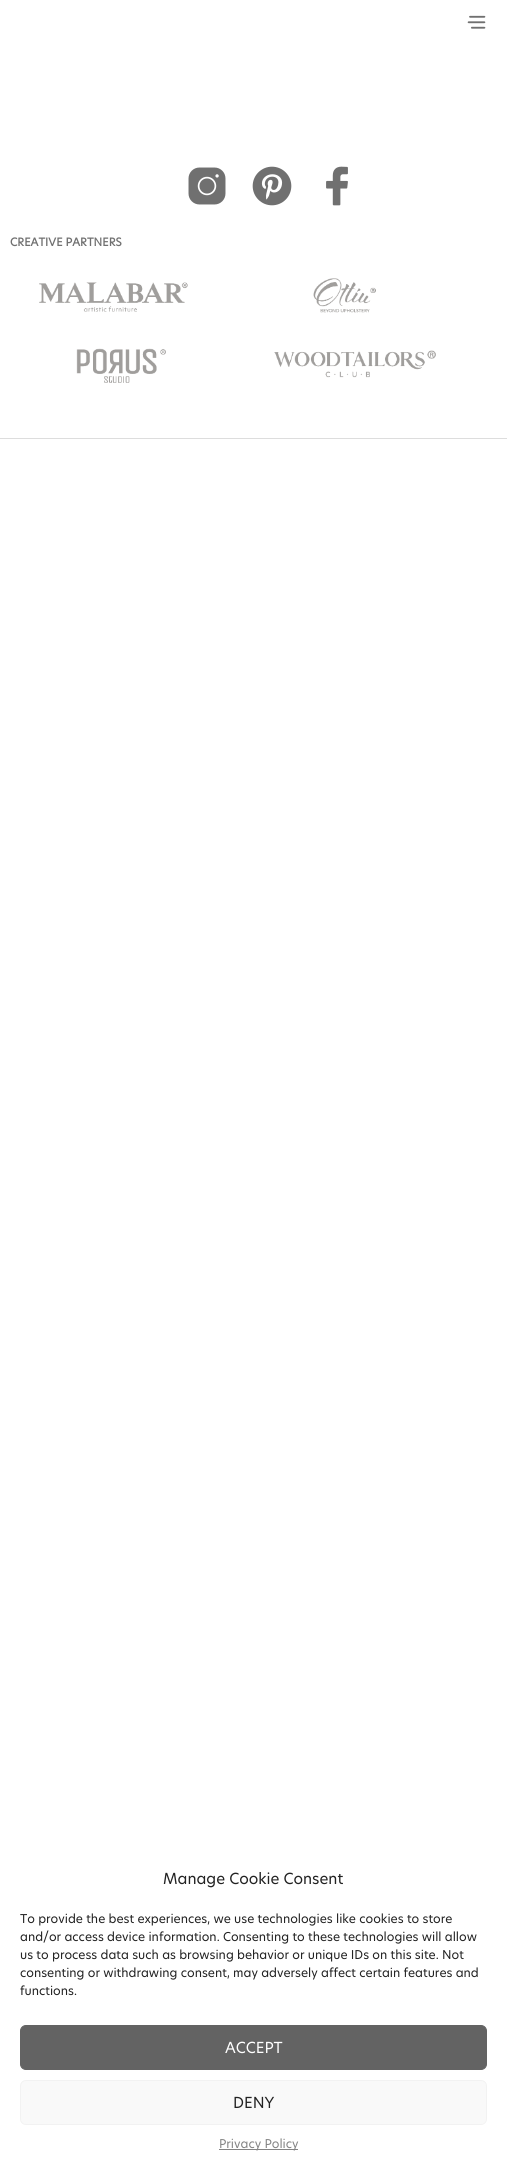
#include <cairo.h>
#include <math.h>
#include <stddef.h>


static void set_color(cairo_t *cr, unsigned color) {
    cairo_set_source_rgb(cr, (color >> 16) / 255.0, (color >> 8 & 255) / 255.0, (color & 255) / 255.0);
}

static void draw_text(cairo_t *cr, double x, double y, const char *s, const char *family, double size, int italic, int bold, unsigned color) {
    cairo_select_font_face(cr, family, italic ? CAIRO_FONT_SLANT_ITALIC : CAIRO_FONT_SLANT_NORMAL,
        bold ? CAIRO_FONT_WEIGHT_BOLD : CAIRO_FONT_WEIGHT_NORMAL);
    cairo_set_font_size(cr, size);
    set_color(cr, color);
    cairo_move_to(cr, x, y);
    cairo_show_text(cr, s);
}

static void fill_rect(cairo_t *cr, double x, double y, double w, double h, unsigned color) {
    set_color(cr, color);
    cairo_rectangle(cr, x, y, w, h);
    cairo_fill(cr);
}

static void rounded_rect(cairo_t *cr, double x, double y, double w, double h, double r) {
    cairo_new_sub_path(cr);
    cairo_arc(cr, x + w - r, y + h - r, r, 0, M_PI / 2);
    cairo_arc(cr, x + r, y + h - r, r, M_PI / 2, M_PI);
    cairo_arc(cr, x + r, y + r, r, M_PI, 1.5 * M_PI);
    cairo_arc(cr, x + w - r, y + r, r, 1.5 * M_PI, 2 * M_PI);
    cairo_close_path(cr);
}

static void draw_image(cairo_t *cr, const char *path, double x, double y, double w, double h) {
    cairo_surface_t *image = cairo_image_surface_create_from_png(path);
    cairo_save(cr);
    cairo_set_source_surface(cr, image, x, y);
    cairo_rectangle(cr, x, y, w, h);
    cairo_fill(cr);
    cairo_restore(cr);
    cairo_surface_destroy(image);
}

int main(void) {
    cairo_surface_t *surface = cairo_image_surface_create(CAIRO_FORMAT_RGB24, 507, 2168);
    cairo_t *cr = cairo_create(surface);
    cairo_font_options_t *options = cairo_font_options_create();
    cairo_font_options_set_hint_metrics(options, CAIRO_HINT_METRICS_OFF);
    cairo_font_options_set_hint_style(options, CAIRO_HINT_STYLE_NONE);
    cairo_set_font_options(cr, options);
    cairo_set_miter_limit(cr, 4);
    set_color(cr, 0xFFFFFF);
    cairo_paint(cr);
    draw_image(cr, "assets/img1.png", 467, 15, 19, 14);
    draw_image(cr, "assets/img2.png", 188, 167, 38, 38);
    draw_image(cr, "assets/img3.png", 252, 166, 40, 40);
    draw_image(cr, "assets/img4.png", 326, 166, 22, 40);
    fill_rect(cr, 0, 438, 507, 1, 0xDDDDDD);
    draw_text(cr, 10, 246, "CREATIVE PARTNERS", "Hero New", 11, 0, 1, 0x707070);
    draw_image(cr, "assets/img5.png", 39, 282, 149, 30);
    draw_image(cr, "assets/img6.png", 313, 278, 63, 35);
    draw_image(cr, "assets/img7.png", 76, 348, 90, 35);
    draw_image(cr, "assets/img8.png", 274, 350, 162, 28);
    draw_text(cr, 163, 1884, "Manage Cookie Consent", "Hero New", 15, 0, 0, 0x222222);
    draw_text(cr, 20, 1923, "To provide the best experiences, we use technologies like cookies to store", "Hero New", 12, 0, 0, 0x222222);
    draw_text(cr, 20, 1941, "and/or access device information. Consenting to these technologies will allow", "Hero New", 12, 0, 0, 0x222222);
    draw_text(cr, 20, 1959, "us to process data such as browsing behavior or unique IDs on this site. Not", "Hero New", 12, 0, 0, 0x222222);
    draw_text(cr, 20, 1977, "consenting or withdrawing consent, may adversely affect certain features and", "Hero New", 12, 0, 0, 0x222222);
    draw_text(cr, 20, 1995, "functions.", "Hero New", 12, 0, 0, 0x222222);
    set_color(cr, 0x636363);
    rounded_rect(cr, 20.5, 2025.5, 466, 44, 5.5);
    cairo_fill_preserve(cr);
    cairo_set_line_width(cr, 1);
    cairo_stroke(cr);
    draw_text(cr, 225, 2053, "ACCEPT", "Hero New", 15, 0, 0, 0xFFFFFF);
    set_color(cr, 0xF9F9F9);
    rounded_rect(cr, 20.5, 2080.5, 466, 44, 5.5);
    cairo_fill_preserve(cr);
    set_color(cr, 0xF2F2F2);
    cairo_stroke(cr);
    draw_text(cr, 233, 2108, "DENY", "Hero New", 15, 0, 0, 0x222222);
    fill_rect(cr, 219, 2149, 79, 1, 0x848484);
    draw_text(cr, 219, 2148, "Privacy Policy", "Hero New", 12, 0, 0, 0x848484);
    cairo_surface_write_to_png(surface, "output.png");
    cairo_font_options_destroy(options);
    cairo_destroy(cr);
    cairo_surface_destroy(surface);
    return 0;
}
